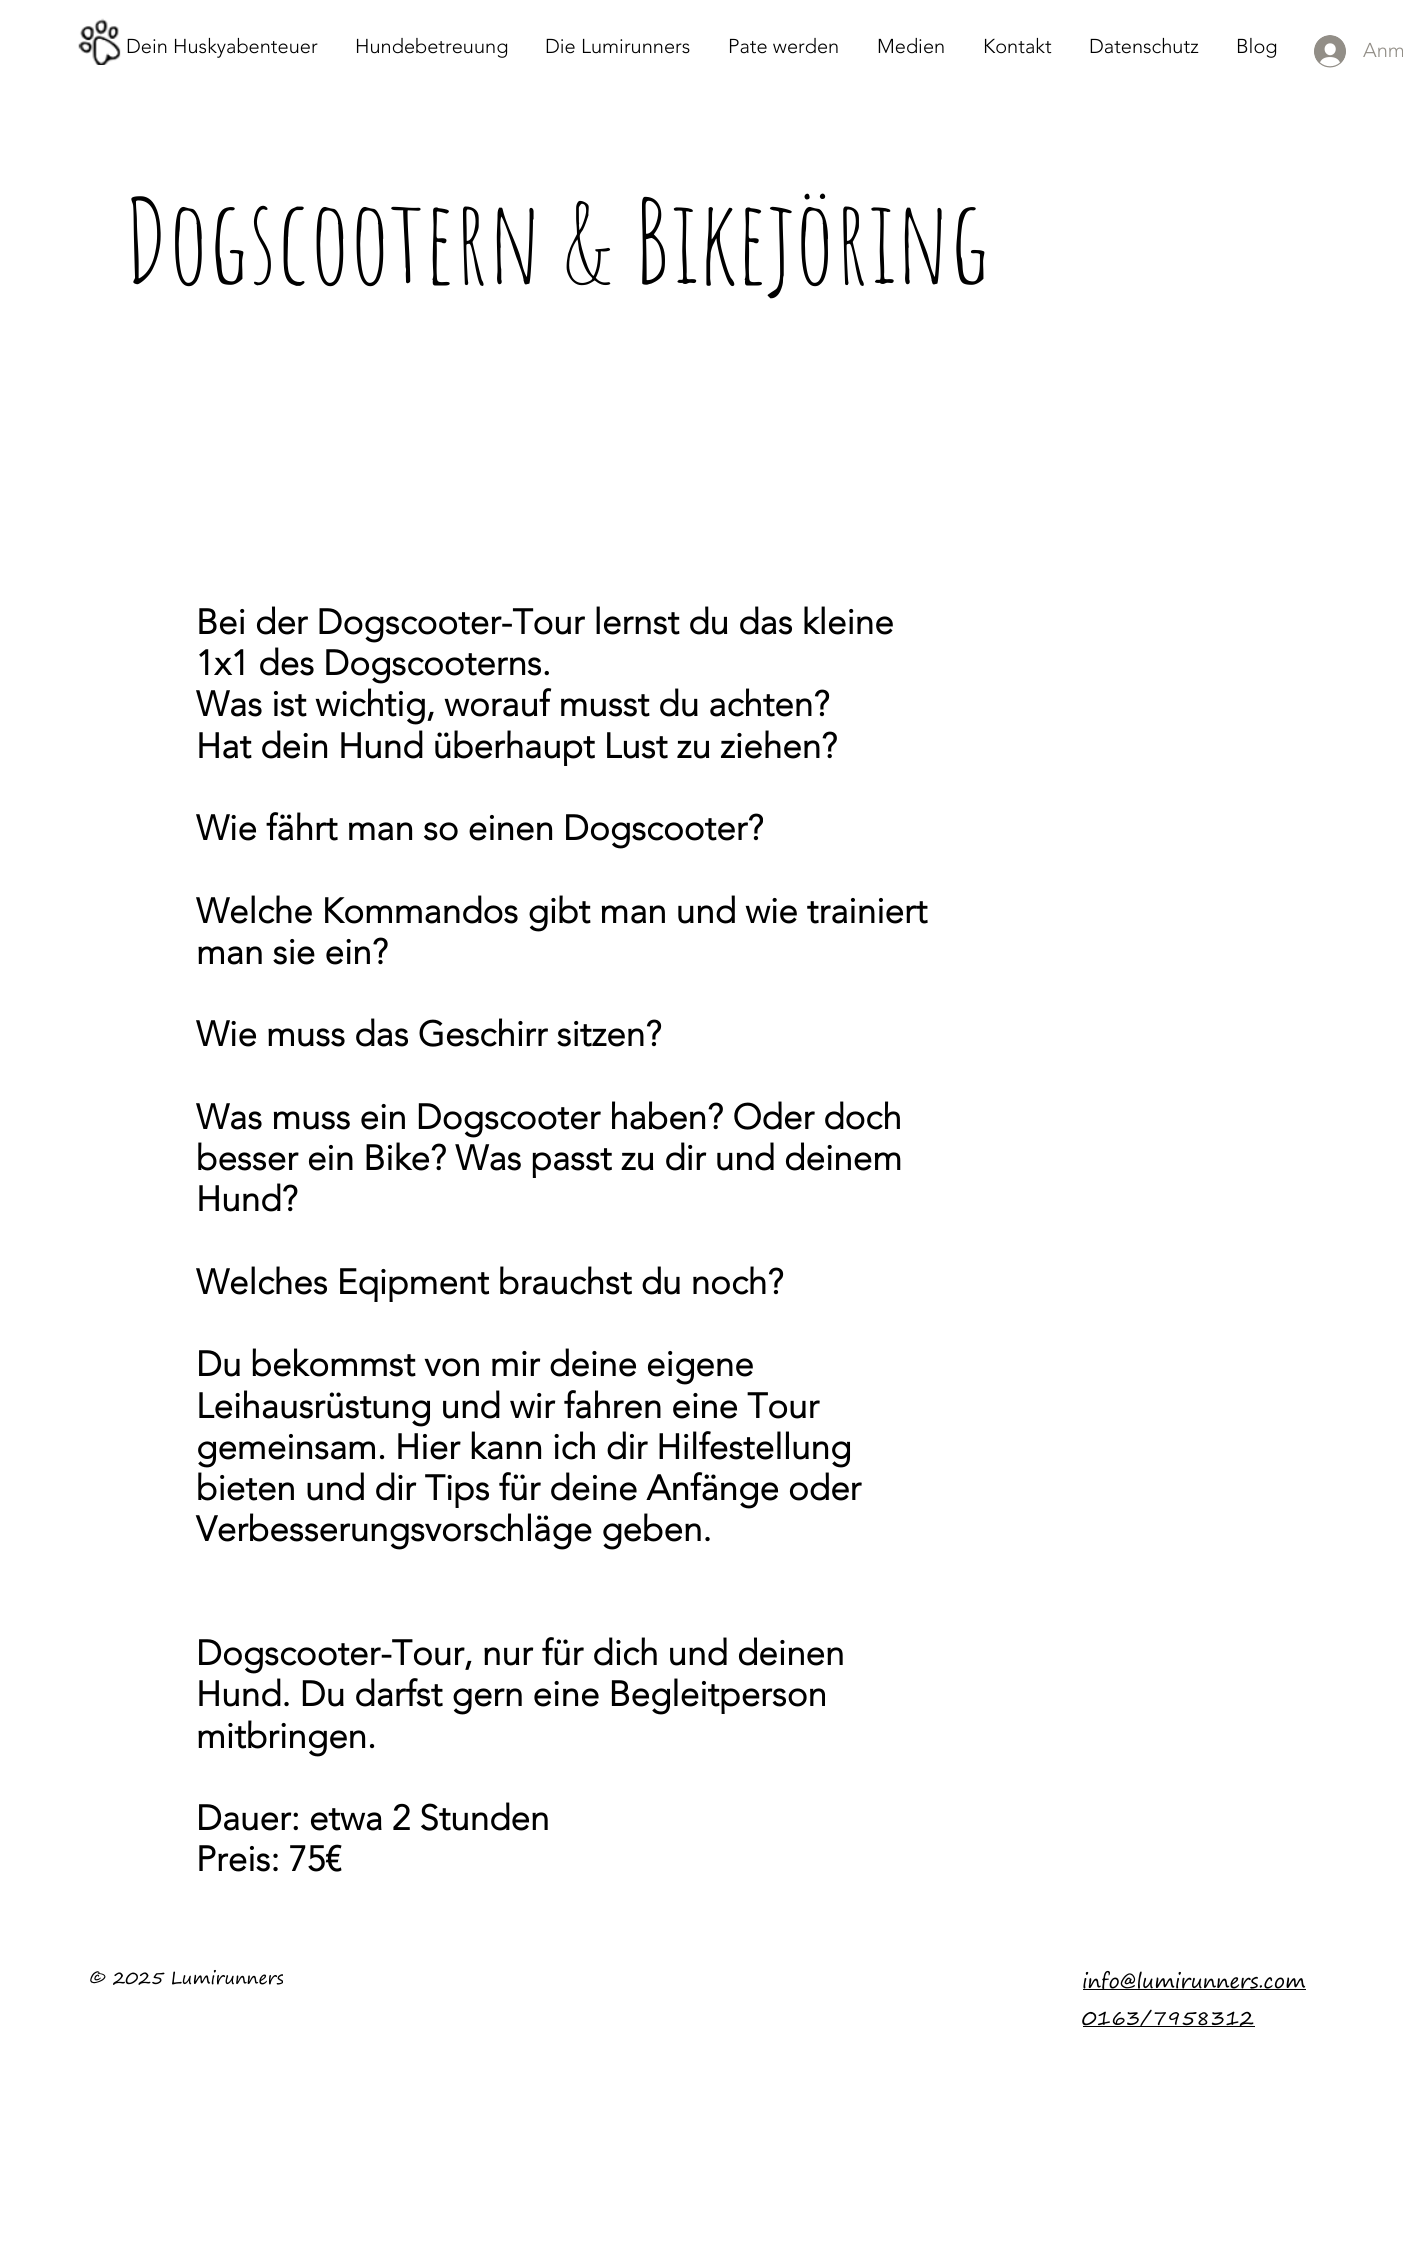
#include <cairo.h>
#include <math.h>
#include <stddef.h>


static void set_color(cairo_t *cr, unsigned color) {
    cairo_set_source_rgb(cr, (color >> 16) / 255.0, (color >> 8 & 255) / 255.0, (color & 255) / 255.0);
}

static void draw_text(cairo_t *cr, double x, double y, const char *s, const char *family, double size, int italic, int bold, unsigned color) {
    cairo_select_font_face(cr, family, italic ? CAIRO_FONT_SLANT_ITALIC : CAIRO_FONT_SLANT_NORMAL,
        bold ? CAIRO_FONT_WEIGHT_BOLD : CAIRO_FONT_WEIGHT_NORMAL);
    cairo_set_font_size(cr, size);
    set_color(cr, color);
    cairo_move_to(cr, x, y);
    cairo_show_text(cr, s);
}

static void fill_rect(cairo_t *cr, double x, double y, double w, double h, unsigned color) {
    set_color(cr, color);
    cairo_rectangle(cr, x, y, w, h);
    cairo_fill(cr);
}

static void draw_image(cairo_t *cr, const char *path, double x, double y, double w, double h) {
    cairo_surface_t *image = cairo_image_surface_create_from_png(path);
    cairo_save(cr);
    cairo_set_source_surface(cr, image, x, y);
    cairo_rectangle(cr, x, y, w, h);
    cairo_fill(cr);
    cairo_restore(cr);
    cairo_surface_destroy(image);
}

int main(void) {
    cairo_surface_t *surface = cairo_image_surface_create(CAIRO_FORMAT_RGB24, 1403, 2256);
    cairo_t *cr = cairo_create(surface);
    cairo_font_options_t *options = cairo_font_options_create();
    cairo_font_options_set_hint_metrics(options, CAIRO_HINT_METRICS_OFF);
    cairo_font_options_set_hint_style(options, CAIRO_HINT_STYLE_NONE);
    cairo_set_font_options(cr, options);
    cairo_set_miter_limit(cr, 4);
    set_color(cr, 0xFFFFFF);
    cairo_paint(cr);
    draw_image(cr, "assets/img1.png", 78, 18, 43, 47);
    draw_text(cr, 126, 53, "Dein Huskyabenteuer", "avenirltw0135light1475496 Light", 20, 0, 0, 0x000000);
    draw_text(cr, 355, 53, "Hundebetreuung", "avenirltw0135light1475496 Light", 20, 0, 0, 0x000000);
    draw_text(cr, 545, 53, "Die Lumirunners", "avenirltw0135light1475496 Light", 20, 0, 0, 0x000000);
    draw_text(cr, 728, 53, "Pate werden", "avenirltw0135light1475496 Light", 20, 0, 0, 0x000000);
    draw_text(cr, 877, 53, "Medien", "avenirltw0135light1475496 Light", 20, 0, 0, 0x000000);
    draw_text(cr, 983, 53, "Kontakt", "avenirltw0135light1475496 Light", 20, 0, 0, 0x000000);
    draw_text(cr, 1089, 53, "Datenschutz", "avenirltw0135light1475496 Light", 20, 0, 0, 0x000000);
    draw_text(cr, 1236, 53, "Blog", "avenirltw0135light1475496 Light", 20, 0, 0, 0x000000);
    draw_image(cr, "assets/img2.png", 1314, 35, 32, 33);
    draw_text(cr, 1363, 57, "Anm", "avenirltw0135light1475496 Light", 20, 0, 0, 0x928E87);
    draw_text(cr, 124, 284, "Dogscootern & Bikejöring", "Amatic SC", 116.25, 0, 0, 0x000000);
    draw_text(cr, 196, 634, "Bei der Dogscooter-Tour lernst du das kleine", "avenirltw0135light1475496", 35, 0, 1, 0x000000);
    draw_text(cr, 196, 675, "1x1 des Dogscooterns.", "avenirltw0135light1475496", 35, 0, 1, 0x000000);
    draw_text(cr, 196, 716, "Was ist wichtig, worauf musst du achten?", "avenirltw0135light1475496", 35, 0, 1, 0x000000);
    draw_text(cr, 196, 758, "Hat dein Hund überhaupt Lust zu ziehen?", "avenirltw0135light1475496", 35, 0, 1, 0x000000);
    draw_text(cr, 196, 840, "Wie fährt man so einen Dogscooter?", "avenirltw0135light1475496", 35, 0, 1, 0x000000);
    draw_text(cr, 196, 923, "Welche Kommandos gibt man und wie trainiert", "avenirltw0135light1475496", 35, 0, 1, 0x000000);
    draw_text(cr, 196, 964, "man sie ein?", "avenirltw0135light1475496", 35, 0, 1, 0x000000);
    draw_text(cr, 196, 1046, "Wie muss das Geschirr sitzen?", "avenirltw0135light1475496", 35, 0, 1, 0x000000);
    draw_text(cr, 196, 1129, "Was muss ein Dogscooter haben? Oder doch", "avenirltw0135light1475496", 35, 0, 1, 0x000000);
    draw_text(cr, 196, 1170, "besser ein Bike? Was passt zu dir und deinem", "avenirltw0135light1475496", 35, 0, 1, 0x000000);
    draw_text(cr, 196, 1211, "Hund?", "avenirltw0135light1475496", 35, 0, 1, 0x000000);
    draw_text(cr, 196, 1294, "Welches Eqipment brauchst du noch?", "avenirltw0135light1475496", 35, 0, 1, 0x000000);
    draw_text(cr, 196, 1376, "Du bekommst von mir deine eigene", "avenirltw0135light1475496", 35, 0, 1, 0x000000);
    draw_text(cr, 196, 1418, "Leihausrüstung und wir fahren eine Tour", "avenirltw0135light1475496", 35, 0, 1, 0x000000);
    draw_text(cr, 196, 1459, "gemeinsam. Hier kann ich dir Hilfestellung", "avenirltw0135light1475496", 35, 0, 1, 0x000000);
    draw_text(cr, 196, 1500, "bieten und dir Tips für deine Anfänge oder", "avenirltw0135light1475496", 35, 0, 1, 0x000000);
    draw_text(cr, 196, 1541, "Verbesserungsvorschläge geben.", "avenirltw0135light1475496", 35, 0, 1, 0x000000);
    draw_text(cr, 196, 1665, "Dogscooter-Tour, nur für dich und deinen", "avenirltw0135light1475496", 35, 0, 1, 0x000000);
    draw_text(cr, 196, 1706, "Hund. Du darfst gern eine Begleitperson", "avenirltw0135light1475496", 35, 0, 1, 0x000000);
    draw_text(cr, 196, 1748, "mitbringen.", "avenirltw0135light1475496", 35, 0, 1, 0x000000);
    draw_text(cr, 196, 1830, "Dauer: etwa 2 Stunden", "avenirltw0135light1475496", 35, 0, 1, 0x000000);
    draw_text(cr, 196, 1871, "Preis: 75€", "avenirltw0135light1475496", 35, 0, 1, 0x000000);
    draw_text(cr, 89, 1984, "© 2025 Lumirunners", "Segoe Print", 17.5, 0, 0, 0x000000);
    draw_text(cr, 1082, 1988, "info@lumirunners.com", "Segoe Print", 20, 0, 0, 0x000000);
    fill_rect(cr, 1083, 1989, 223, 1, 0x000000);
    fill_rect(cr, 1083, 2026, 172, 1, 0x000000);
    draw_text(cr, 1082, 2025, "0163/7958312", "Segoe Print", 20, 0, 0, 0x000000);
    cairo_surface_write_to_png(surface, "output.png");
    cairo_font_options_destroy(options);
    cairo_destroy(cr);
    cairo_surface_destroy(surface);
    return 0;
}
